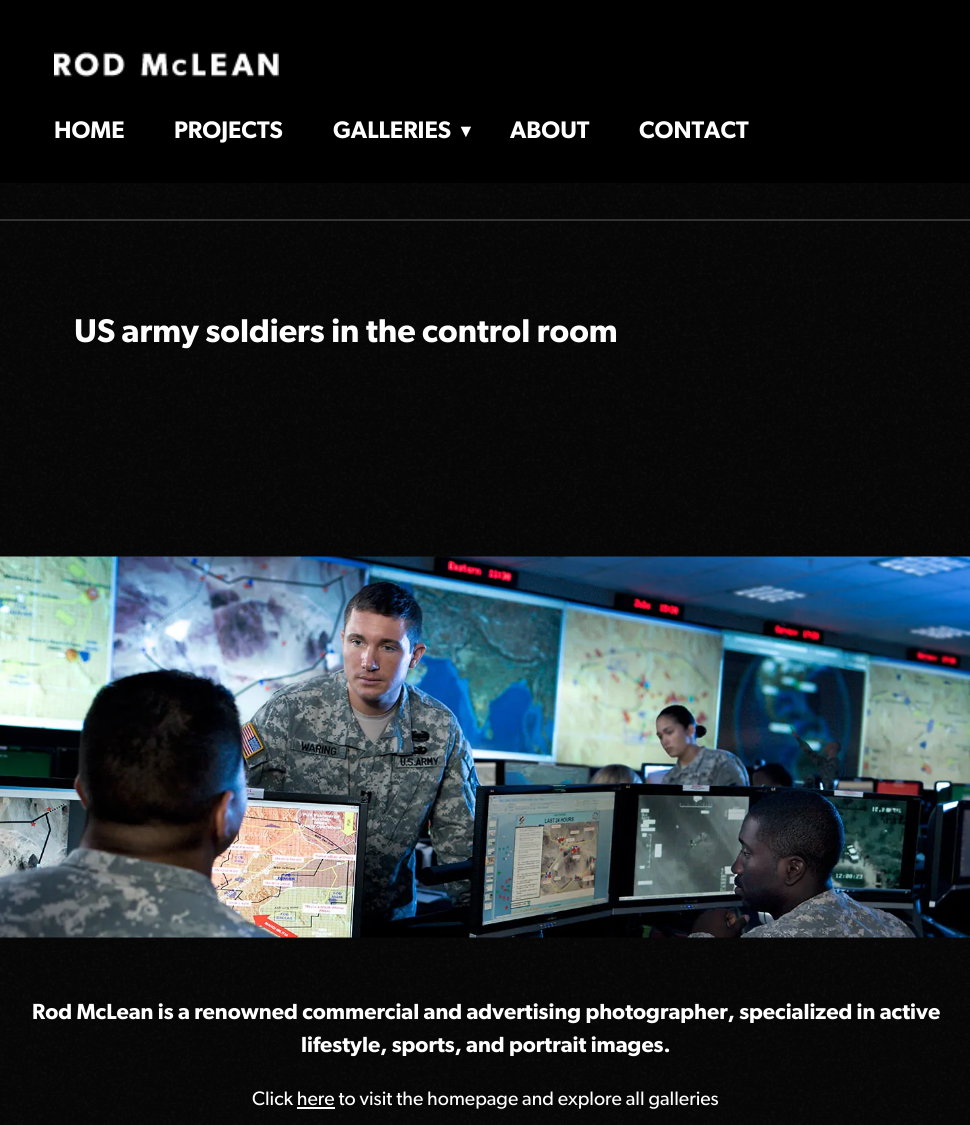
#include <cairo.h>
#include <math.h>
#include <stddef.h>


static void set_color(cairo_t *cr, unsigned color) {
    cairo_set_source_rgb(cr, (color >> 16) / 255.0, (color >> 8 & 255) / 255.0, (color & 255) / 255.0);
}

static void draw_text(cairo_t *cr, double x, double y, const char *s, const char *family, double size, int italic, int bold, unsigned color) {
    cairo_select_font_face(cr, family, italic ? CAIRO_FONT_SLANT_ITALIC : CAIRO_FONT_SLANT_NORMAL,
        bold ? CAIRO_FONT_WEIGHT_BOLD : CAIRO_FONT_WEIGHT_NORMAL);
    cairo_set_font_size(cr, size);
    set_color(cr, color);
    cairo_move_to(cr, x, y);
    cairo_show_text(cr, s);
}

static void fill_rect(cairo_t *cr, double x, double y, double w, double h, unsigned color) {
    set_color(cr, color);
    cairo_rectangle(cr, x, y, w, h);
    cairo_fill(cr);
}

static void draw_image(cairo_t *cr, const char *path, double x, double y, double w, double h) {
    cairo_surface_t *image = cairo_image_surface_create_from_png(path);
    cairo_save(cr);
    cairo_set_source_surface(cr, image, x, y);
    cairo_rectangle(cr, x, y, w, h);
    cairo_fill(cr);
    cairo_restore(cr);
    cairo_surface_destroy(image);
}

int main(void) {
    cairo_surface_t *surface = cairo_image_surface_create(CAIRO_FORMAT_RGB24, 970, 1125);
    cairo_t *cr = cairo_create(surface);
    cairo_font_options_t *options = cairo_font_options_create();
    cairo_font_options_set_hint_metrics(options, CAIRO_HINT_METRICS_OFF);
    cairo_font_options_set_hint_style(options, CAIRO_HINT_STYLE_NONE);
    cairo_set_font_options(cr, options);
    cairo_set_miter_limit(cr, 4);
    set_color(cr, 0xFFFFFF);
    cairo_paint(cr);
    draw_image(cr, "assets/img1.png", 0, 183, 970, 942);
    draw_image(cr, "assets/img1.png", 0, 183, 970, 942);
    fill_rect(cr, 0, 0, 970, 183, 0x000000);
    draw_image(cr, "assets/img2.png", 54, 52, 225, 25);
    draw_text(cr, 54, 138, "HOME", "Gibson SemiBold", 24, 0, 0, 0xFFFFFF);
    draw_text(cr, 174, 138, "PROJECTS", "Gibson SemiBold", 24, 0, 0, 0xFFFFFF);
    draw_text(cr, 333, 138, "GALLERIES", "Gibson SemiBold", 24, 0, 0, 0xFFFFFF);
    draw_text(cr, 457, 137, "▼", "Liberation Sans", 18, 0, 0, 0xFFFFFF);
    draw_text(cr, 510, 138, "ABOUT", "Gibson SemiBold", 24, 0, 0, 0xFFFFFF);
    draw_text(cr, 639, 138, "CONTACT", "Gibson SemiBold", 24, 0, 0, 0xFFFFFF);
    fill_rect(cr, 0, 219, 970, 2, 0x333333);
    draw_text(cr, 74, 342, "US army soldiers in the control room", "Gibson SemiBold", 33, 0, 0, 0xFFFFFF);
    draw_image(cr, "assets/img3.png", 0, 556, 970, 382);
    draw_text(cr, 32, 1019, "Rod McLean is a renowned commercial and advertising photographer, specialized in active", "Gibson SemiBold", 21.95, 0, 0, 0xFFFFFF);
    draw_text(cr, 301, 1052, "lifestyle, sports, and portrait images.", "Gibson SemiBold", 21.95, 0, 0, 0xFFFFFF);
    draw_text(cr, 252, 1105, "Click here to visit the homepage and explore all galleries", "Gibson", 19.5, 0, 0, 0xFFFFFF);
    fill_rect(cr, 297, 1107, 38, 2, 0xFFFFFF);
    cairo_surface_write_to_png(surface, "output.png");
    cairo_font_options_destroy(options);
    cairo_destroy(cr);
    cairo_surface_destroy(surface);
    return 0;
}
